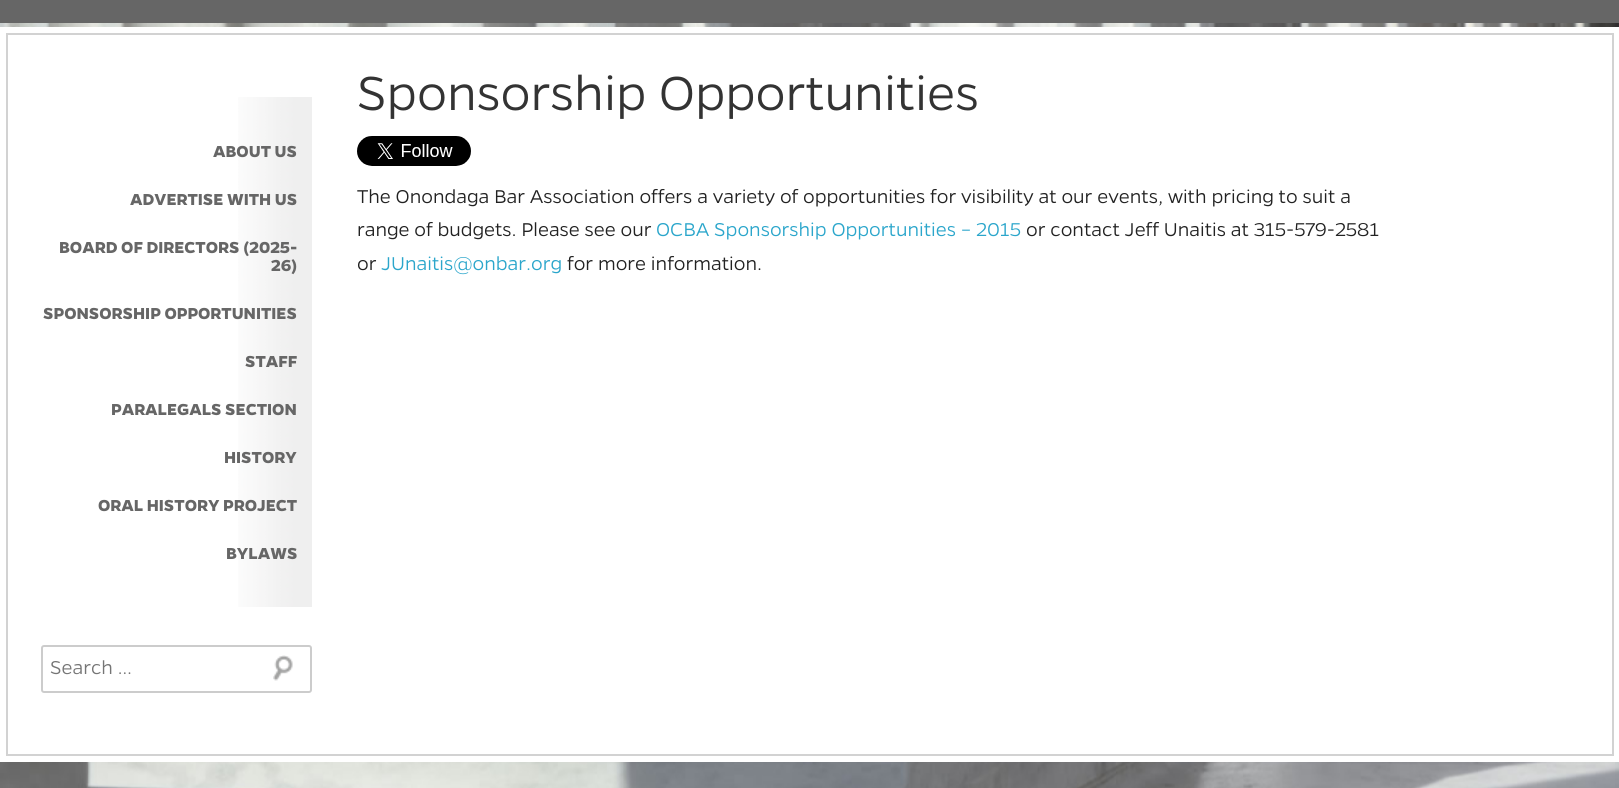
#include <cairo.h>
#include <math.h>
#include <stddef.h>


static void set_color(cairo_t *cr, unsigned color) {
    cairo_set_source_rgb(cr, (color >> 16) / 255.0, (color >> 8 & 255) / 255.0, (color & 255) / 255.0);
}

static void draw_text(cairo_t *cr, double x, double y, const char *s, const char *family, double size, int italic, int bold, unsigned color) {
    cairo_select_font_face(cr, family, italic ? CAIRO_FONT_SLANT_ITALIC : CAIRO_FONT_SLANT_NORMAL,
        bold ? CAIRO_FONT_WEIGHT_BOLD : CAIRO_FONT_WEIGHT_NORMAL);
    cairo_set_font_size(cr, size);
    set_color(cr, color);
    cairo_move_to(cr, x, y);
    cairo_show_text(cr, s);
}

static void fill_rect(cairo_t *cr, double x, double y, double w, double h, unsigned color) {
    set_color(cr, color);
    cairo_rectangle(cr, x, y, w, h);
    cairo_fill(cr);
}

static void rounded_rect(cairo_t *cr, double x, double y, double w, double h, double r) {
    cairo_new_sub_path(cr);
    cairo_arc(cr, x + w - r, y + h - r, r, 0, M_PI / 2);
    cairo_arc(cr, x + r, y + h - r, r, M_PI / 2, M_PI);
    cairo_arc(cr, x + r, y + r, r, M_PI, 1.5 * M_PI);
    cairo_arc(cr, x + w - r, y + r, r, 1.5 * M_PI, 2 * M_PI);
    cairo_close_path(cr);
}

static void draw_image(cairo_t *cr, const char *path, double x, double y, double w, double h) {
    cairo_surface_t *image = cairo_image_surface_create_from_png(path);
    cairo_save(cr);
    cairo_set_source_surface(cr, image, x, y);
    cairo_rectangle(cr, x, y, w, h);
    cairo_fill(cr);
    cairo_restore(cr);
    cairo_surface_destroy(image);
}

int main(void) {
    cairo_surface_t *surface = cairo_image_surface_create(CAIRO_FORMAT_RGB24, 1619, 788);
    cairo_t *cr = cairo_create(surface);
    cairo_font_options_t *options = cairo_font_options_create();
    cairo_font_options_set_hint_metrics(options, CAIRO_HINT_METRICS_OFF);
    cairo_font_options_set_hint_style(options, CAIRO_HINT_STYLE_NONE);
    cairo_set_font_options(cr, options);
    cairo_set_miter_limit(cr, 4);
    set_color(cr, 0xFFFFFF);
    cairo_paint(cr);
    fill_rect(cr, 0, 0, 1619, 23, 0x666666);
    draw_image(cr, "assets/img1.png", 0, 23, 1619, 765);
    fill_rect(cr, 0, 27, 1619, 735, 0xFFFFFF);
    cairo_rectangle(cr, 7, 34, 1606, 721);
    set_color(cr, 0xD2D2D2);
    cairo_stroke(cr);
    draw_image(cr, "assets/img2.png", 238, 97, 74, 510);
    draw_text(cr, 213, 157, "ABOUT US", "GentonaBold", 18, 0, 1, 0x666666);
    draw_text(cr, 130, 205, "ADVERTISE WITH US", "GentonaBold", 18, 0, 1, 0x666666);
    draw_text(cr, 59, 253, "BOARD OF DIRECTORS (2025-", "GentonaBold", 18, 0, 1, 0x666666);
    draw_text(cr, 271, 271, "26)", "GentonaBold", 18, 0, 1, 0x666666);
    draw_text(cr, 43, 319, "SPONSORSHIP OPPORTUNITIES", "GentonaBold", 18, 0, 1, 0x666666);
    draw_text(cr, 245, 367, "STAFF", "GentonaBold", 18, 0, 1, 0x666666);
    draw_text(cr, 111, 415, "PARALEGALS SECTION", "GentonaBold", 18, 0, 1, 0x666666);
    draw_text(cr, 224, 463, "HISTORY", "GentonaBold", 18, 0, 1, 0x666666);
    draw_text(cr, 98, 511, "ORAL HISTORY PROJECT", "GentonaBold", 18, 0, 1, 0x666666);
    draw_text(cr, 226, 559, "BYLAWS", "GentonaBold", 18, 0, 1, 0x666666);
    draw_image(cr, "assets/img3.png", 273, 655, 20, 26);
    rounded_rect(cr, 42, 646, 269, 46, 2);
    set_color(cr, 0xCCCCCC);
    cairo_stroke(cr);
    draw_text(cr, 50, 674, "Search …", "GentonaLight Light", 21, 0, 0, 0x757575);
    draw_text(cr, 357, 110, "Sponsorship Opportunities", "GentonaLight Light", 54, 0, 0, 0x333333);
    draw_image(cr, "assets/img4.png", 357, 136, 114, 30);
    draw_text(cr, 357, 203, "The Onondaga Bar Association offers a variety of opportunities for visibility at our events, with pricing to suit a", "GentonaLight Light", 21, 0, 0, 0x222222);
    draw_text(cr, 357, 236, "range of budgets. Please see our", "GentonaLight Light", 21, 0, 0, 0x222222);
    draw_text(cr, 656, 236, "OCBA Sponsorship Opportunities – 2015", "GentonaLight Light", 21, 0, 0, 0x2BA6CB);
    draw_text(cr, 1026, 236, "or contact Jeff Unaitis at 315-579-2581", "GentonaLight Light", 21, 0, 0, 0x222222);
    draw_text(cr, 357, 270, "or", "GentonaLight Light", 21, 0, 0, 0x222222);
    draw_text(cr, 381, 270, "JUnaitis@onbar.org", "GentonaLight Light", 21, 0, 0, 0x2BA6CB);
    draw_text(cr, 567, 270, "for more information.", "GentonaLight Light", 21, 0, 0, 0x222222);
    cairo_surface_write_to_png(surface, "output.png");
    cairo_font_options_destroy(options);
    cairo_destroy(cr);
    cairo_surface_destroy(surface);
    return 0;
}
